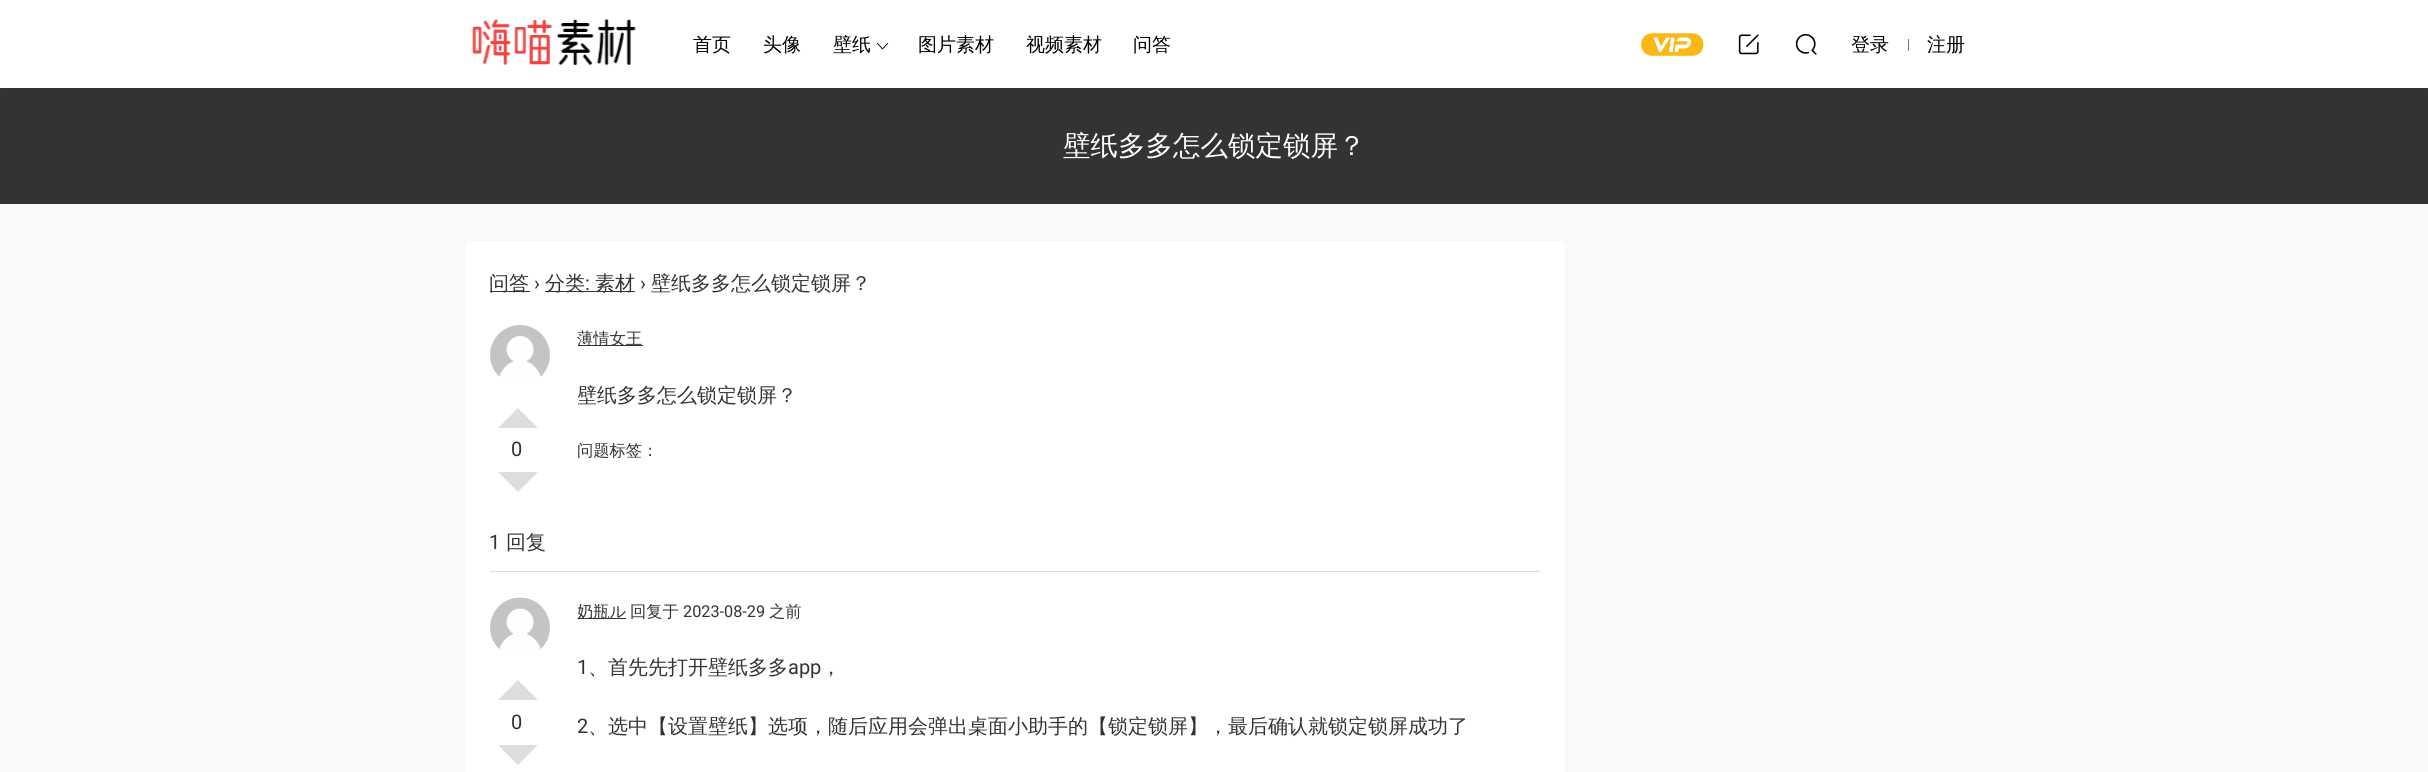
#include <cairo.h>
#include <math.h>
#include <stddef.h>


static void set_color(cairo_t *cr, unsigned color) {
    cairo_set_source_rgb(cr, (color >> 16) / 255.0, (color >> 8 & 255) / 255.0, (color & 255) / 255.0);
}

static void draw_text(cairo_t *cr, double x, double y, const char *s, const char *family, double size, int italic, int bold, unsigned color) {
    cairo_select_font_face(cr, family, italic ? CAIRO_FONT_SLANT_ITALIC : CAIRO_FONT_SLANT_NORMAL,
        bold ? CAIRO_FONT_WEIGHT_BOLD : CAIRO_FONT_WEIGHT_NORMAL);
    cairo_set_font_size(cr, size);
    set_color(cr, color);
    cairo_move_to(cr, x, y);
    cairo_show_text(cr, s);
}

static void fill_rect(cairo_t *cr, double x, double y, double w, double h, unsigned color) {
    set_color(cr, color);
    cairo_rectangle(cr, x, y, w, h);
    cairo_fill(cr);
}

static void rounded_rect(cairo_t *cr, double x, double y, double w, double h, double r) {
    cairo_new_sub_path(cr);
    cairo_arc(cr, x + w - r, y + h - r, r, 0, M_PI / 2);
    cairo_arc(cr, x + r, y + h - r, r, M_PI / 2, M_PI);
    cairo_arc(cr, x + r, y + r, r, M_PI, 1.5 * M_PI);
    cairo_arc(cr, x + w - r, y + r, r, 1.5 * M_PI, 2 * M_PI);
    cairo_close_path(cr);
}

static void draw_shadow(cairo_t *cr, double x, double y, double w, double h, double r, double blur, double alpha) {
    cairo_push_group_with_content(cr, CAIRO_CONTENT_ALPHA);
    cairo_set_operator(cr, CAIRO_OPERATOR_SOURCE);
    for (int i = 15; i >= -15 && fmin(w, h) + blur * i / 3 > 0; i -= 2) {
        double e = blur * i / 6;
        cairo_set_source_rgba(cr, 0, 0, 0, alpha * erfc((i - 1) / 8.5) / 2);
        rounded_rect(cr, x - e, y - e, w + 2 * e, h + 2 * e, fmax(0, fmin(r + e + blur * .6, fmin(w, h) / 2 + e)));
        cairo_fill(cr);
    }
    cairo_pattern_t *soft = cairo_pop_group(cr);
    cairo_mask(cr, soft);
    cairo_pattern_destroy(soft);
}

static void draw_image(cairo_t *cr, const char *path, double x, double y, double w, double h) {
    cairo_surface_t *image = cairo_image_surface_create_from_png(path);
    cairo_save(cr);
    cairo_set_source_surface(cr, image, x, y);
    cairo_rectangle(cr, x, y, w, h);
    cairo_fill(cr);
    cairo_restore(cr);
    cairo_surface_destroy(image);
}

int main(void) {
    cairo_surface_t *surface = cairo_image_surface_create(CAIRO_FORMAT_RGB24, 2428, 772);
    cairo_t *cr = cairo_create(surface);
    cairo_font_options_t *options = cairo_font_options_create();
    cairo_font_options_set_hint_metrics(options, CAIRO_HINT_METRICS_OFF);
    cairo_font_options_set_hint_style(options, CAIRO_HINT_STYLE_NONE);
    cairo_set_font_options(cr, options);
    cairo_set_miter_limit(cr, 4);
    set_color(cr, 0xF9F9F9);
    cairo_paint(cr);
    fill_rect(cr, 0, 88, 2428, 116, 0x333333);
    set_color(cr, 0x113A5D);
    draw_shadow(cr, 0, 5, 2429, 88, 0, 6, 0.1);
    fill_rect(cr, 0, 0, 2428, 88, 0xFFFFFF);
    draw_image(cr, "assets/img1.png", 471, 19, 165, 47);
    draw_text(cr, 693, 51, "首页", "WenQuanYi Zen Hei Medium", 19, 0, 0, 0x000000);
    draw_text(cr, 763, 51, "头像", "WenQuanYi Zen Hei Medium", 19, 0, 0, 0x000000);
    draw_text(cr, 833, 51, "壁纸", "WenQuanYi Zen Hei Medium", 19, 0, 0, 0x000000);
    draw_image(cr, "assets/img2.png", 876, 42, 13, 8);
    draw_text(cr, 918, 51, "图片素材", "WenQuanYi Zen Hei Medium", 19, 0, 0, 0x000000);
    draw_text(cr, 1026, 51, "视频素材", "WenQuanYi Zen Hei Medium", 19, 0, 0, 0x000000);
    draw_text(cr, 1133, 51, "问答", "WenQuanYi Zen Hei Medium", 19, 0, 0, 0x000000);
    draw_image(cr, "assets/img3.png", 1641, 33, 63, 23);
    draw_image(cr, "assets/img4.png", 1738, 34, 21, 21);
    draw_image(cr, "assets/img5.png", 1795, 33, 22, 22);
    draw_text(cr, 1851, 51, "登录", "WenQuanYi Zen Hei Medium", 19, 0, 0, 0x000000);
    fill_rect(cr, 1908, 39, 1, 12, 0x777777);
    draw_text(cr, 1927, 51, "注册", "WenQuanYi Zen Hei Medium", 19, 0, 0, 0x000000);
    draw_text(cr, 1063, 155, "壁纸多多怎么锁定锁屏？", "WenQuanYi Zen Hei Medium", 27.5, 0, 0, 0xFFFFFF);
    rounded_rect(cr, 465, 241, 1100, 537, 6);
    cairo_fill(cr);
    fill_rect(cr, 490, 291, 40, 1, 0x333333);
    draw_text(cr, 489, 290, "问答", "WenQuanYi Zen Hei Medium", 20, 0, 0, 0x333333);
    draw_text(cr, 534, 290, "›", "Roboto", 20, 0, 0, 0x333333);
    fill_rect(cr, 545, 291, 90, 1, 0x333333);
    draw_text(cr, 545, 290, "分类", "WenQuanYi Zen Hei Medium", 20, 0, 0, 0x333333);
    draw_text(cr, 585, 290, ":", "Roboto", 20, 0, 0, 0x333333);
    draw_text(cr, 595, 290, "素材", "WenQuanYi Zen Hei Medium", 20, 0, 0, 0x333333);
    draw_text(cr, 640, 290, "›", "Roboto", 20, 0, 0, 0x333333);
    draw_text(cr, 651, 290, "壁纸多多怎么锁定锁屏？", "WenQuanYi Zen Hei Medium", 20, 0, 0, 0x333333);
    draw_image(cr, "assets/img6.png", 490, 325, 60, 52);
    fill_rect(cr, 578, 345, 65, 1, 0x333333);
    draw_text(cr, 577, 344, "薄情女王", "WenQuanYi Zen Hei Medium", 16.25, 0, 0, 0x333333);
    cairo_save(cr);
    cairo_rectangle(cr, 578, 378, 962, 33);
    cairo_clip(cr);
    draw_text(cr, 577, 402, "壁纸多多怎么锁定锁屏？", "WenQuanYi Zen Hei Medium", 20, 0, 0, 0x333333);
    cairo_restore(cr);
    set_color(cr, 0xDDDDDD);
    cairo_new_path(cr);
    cairo_move_to(cr, 538, 428);
    cairo_line_to(cr, 498, 428);
    cairo_line_to(cr, 518, 408);
    cairo_close_path(cr);
    cairo_fill(cr);
    draw_text(cr, 511, 456, "0", "Roboto", 20, 0, 0, 0x333333);
    set_color(cr, 0xDDDDDD);
    cairo_new_path(cr);
    cairo_move_to(cr, 498, 472);
    cairo_line_to(cr, 538, 472);
    cairo_line_to(cr, 518, 492);
    cairo_close_path(cr);
    cairo_fill(cr);
    draw_text(cr, 577, 456, "问题标签：", "WenQuanYi Zen Hei Medium", 16.25, 0, 0, 0x333333);
    draw_text(cr, 489, 549, "1", "Roboto", 20, 0, 0, 0x333333);
    draw_text(cr, 506, 549, "回复", "WenQuanYi Zen Hei Medium", 20, 0, 0, 0x333333);
    fill_rect(cr, 490, 571, 1050, 1, 0xDDDDDD);
    draw_image(cr, "assets/img7.png", 490, 597, 60, 52);
    fill_rect(cr, 578, 618, 48, 1, 0x333333);
    draw_text(cr, 577, 617, "奶瓶ル", "WenQuanYi Zen Hei Medium", 16.25, 0, 0, 0x333333);
    draw_text(cr, 630, 617, "回复于", "WenQuanYi Zen Hei Medium", 16.25, 0, 0, 0x333333);
    draw_text(cr, 683, 617, "2023-08-29", "Roboto", 16.25, 0, 0, 0x333333);
    draw_text(cr, 769, 617, "之前", "WenQuanYi Zen Hei Medium", 16.25, 0, 0, 0x333333);
    set_color(cr, 0xDDDDDD);
    cairo_new_path(cr);
    cairo_move_to(cr, 538, 700);
    cairo_line_to(cr, 498, 700);
    cairo_line_to(cr, 518, 680);
    cairo_close_path(cr);
    cairo_fill(cr);
    draw_text(cr, 511, 729, "0", "Roboto", 20, 0, 0, 0x333333);
    set_color(cr, 0xDDDDDD);
    cairo_new_path(cr);
    cairo_move_to(cr, 498, 745);
    cairo_line_to(cr, 538, 745);
    cairo_line_to(cr, 518, 765);
    cairo_close_path(cr);
    cairo_fill(cr);
    draw_text(cr, 577, 674, "1", "Roboto", 20, 0, 0, 0x333333);
    draw_text(cr, 588, 674, "、首先先打开壁纸多多", "WenQuanYi Zen Hei Medium", 20, 0, 0, 0x333333);
    draw_text(cr, 788, 674, "app", "Roboto", 20, 0, 0, 0x333333);
    draw_text(cr, 821, 674, "，", "WenQuanYi Zen Hei Medium", 20, 0, 0, 0x333333);
    draw_text(cr, 577, 733, "2", "Roboto", 20, 0, 0, 0x333333);
    draw_text(cr, 588, 733, "、选中【设置壁纸】选项，随后应用会弹出桌面小助手的【锁定锁屏】，最后确认就锁定锁屏成功了", "WenQuanYi Zen Hei Medium", 20, 0, 0, 0x333333);
    cairo_surface_write_to_png(surface, "output.png");
    cairo_font_options_destroy(options);
    cairo_destroy(cr);
    cairo_surface_destroy(surface);
    return 0;
}
